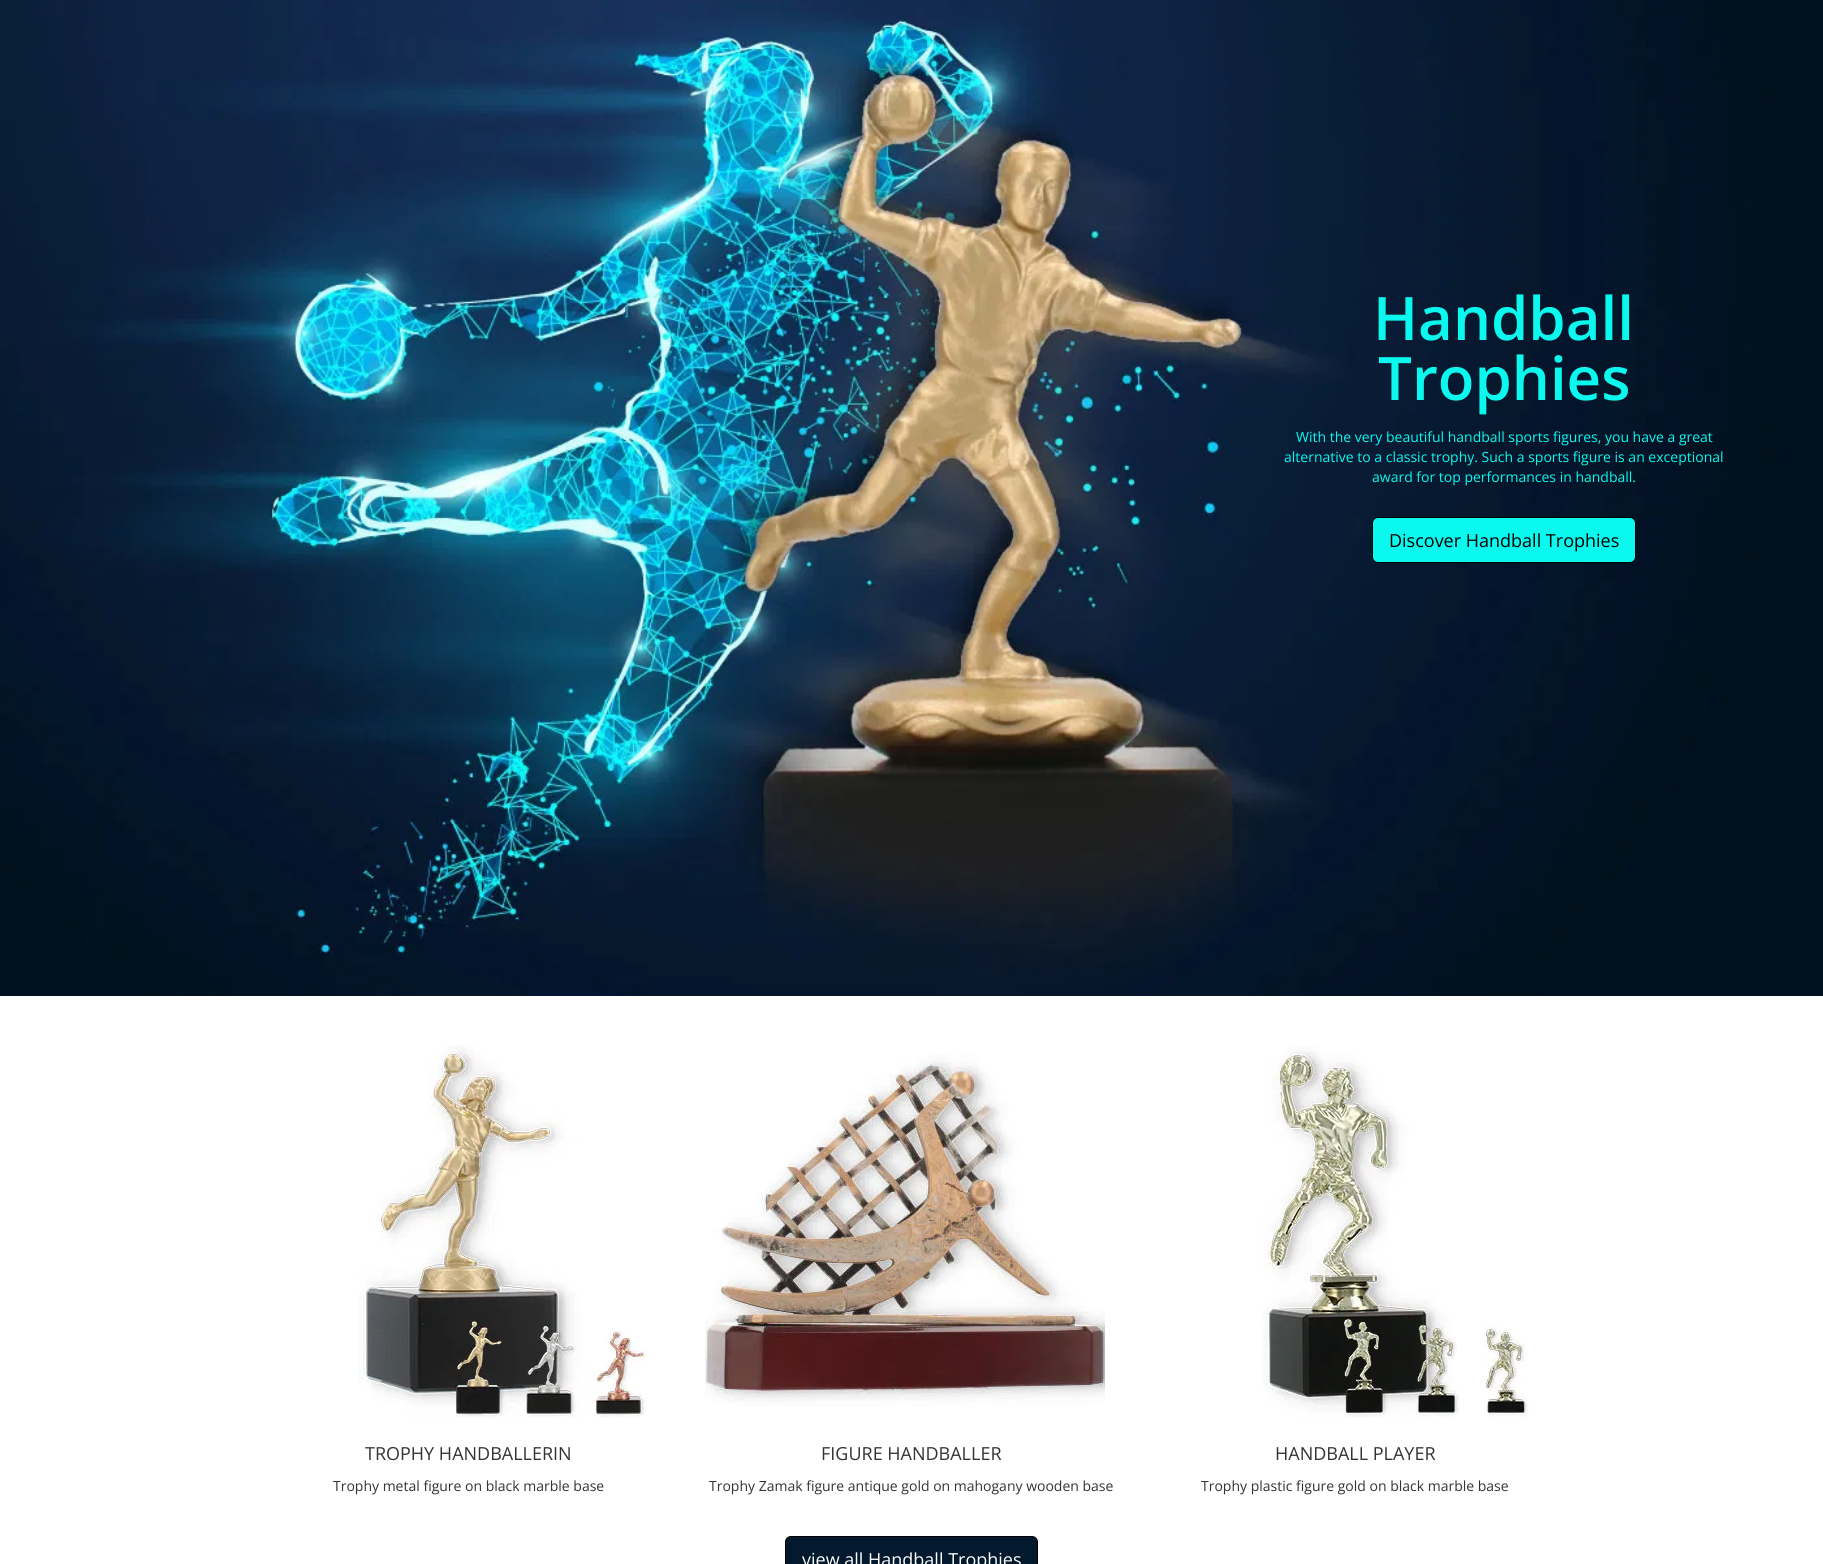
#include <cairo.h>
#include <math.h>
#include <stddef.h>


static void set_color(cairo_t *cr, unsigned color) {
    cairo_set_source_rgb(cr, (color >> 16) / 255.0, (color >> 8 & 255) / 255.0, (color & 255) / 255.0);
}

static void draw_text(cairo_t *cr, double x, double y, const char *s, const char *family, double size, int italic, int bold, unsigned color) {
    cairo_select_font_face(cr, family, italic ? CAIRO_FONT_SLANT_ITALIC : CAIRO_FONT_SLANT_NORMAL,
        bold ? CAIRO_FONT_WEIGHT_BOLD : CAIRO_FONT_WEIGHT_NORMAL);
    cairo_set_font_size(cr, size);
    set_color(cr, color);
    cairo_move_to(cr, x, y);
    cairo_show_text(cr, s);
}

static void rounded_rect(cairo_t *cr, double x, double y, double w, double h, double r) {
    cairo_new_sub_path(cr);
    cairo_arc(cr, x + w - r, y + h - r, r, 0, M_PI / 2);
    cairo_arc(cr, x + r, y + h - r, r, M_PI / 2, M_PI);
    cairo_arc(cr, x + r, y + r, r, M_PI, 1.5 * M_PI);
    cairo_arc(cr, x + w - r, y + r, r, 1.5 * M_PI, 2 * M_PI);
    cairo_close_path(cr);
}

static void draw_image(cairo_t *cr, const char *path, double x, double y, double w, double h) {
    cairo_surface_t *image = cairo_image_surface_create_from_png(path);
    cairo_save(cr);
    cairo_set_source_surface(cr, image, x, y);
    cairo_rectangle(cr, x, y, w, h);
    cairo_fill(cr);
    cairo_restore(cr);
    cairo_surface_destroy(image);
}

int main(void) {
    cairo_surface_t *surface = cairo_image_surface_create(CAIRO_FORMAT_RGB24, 1823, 1564);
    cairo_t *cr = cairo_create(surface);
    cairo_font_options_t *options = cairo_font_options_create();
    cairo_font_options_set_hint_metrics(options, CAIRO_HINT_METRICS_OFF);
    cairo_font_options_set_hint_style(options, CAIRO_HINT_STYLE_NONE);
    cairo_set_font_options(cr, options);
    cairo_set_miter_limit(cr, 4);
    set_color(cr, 0xFFFFFF);
    cairo_paint(cr);
    draw_image(cr, "assets/img1.png", 0, 0, 1823, 996);
    draw_text(cr, 1373, 340, "Handball", "Open Sans SemiBold", 60, 0, 0, 0x0BF8EE);
    draw_text(cr, 1378, 400, "Trophies", "Open Sans SemiBold", 60, 0, 0, 0x0BF8EE);
    draw_text(cr, 1296, 442, "With the very beautiful handball sports figures, you have a great", "Open Sans", 14, 0, 0, 0x0BF8EE);
    draw_text(cr, 1284, 462, "alternative to a classic trophy. Such a sports figure is an exceptional", "Open Sans", 14, 0, 0, 0x0BF8EE);
    draw_text(cr, 1372, 482, "award for top performances in handball.", "Open Sans", 14, 0, 0, 0x0BF8EE);
    rounded_rect(cr, 1372.5, 517.5, 263, 45, 5.5);
    cairo_fill_preserve(cr);
    set_color(cr, 0x000000);
    cairo_set_line_width(cr, 1);
    cairo_stroke(cr);
    draw_text(cr, 1389, 547, "Discover Handball Trophies", "Open Sans", 18, 0, 0, 0x000000);
    draw_image(cr, "assets/img2.png", 358, 1045, 288, 373);
    draw_text(cr, 365, 1460, "TROPHY HANDBALLERIN", "Open Sans", 18, 0, 0, 0x333333);
    draw_text(cr, 333, 1491, "Trophy metal figure on black marble base", "Open Sans", 14, 0, 0, 0x333333);
    draw_image(cr, "assets/img3.png", 705, 1054, 400, 352);
    draw_text(cr, 821, 1460, "FIGURE HANDBALLER", "Open Sans", 18, 0, 0, 0x333333);
    draw_text(cr, 709, 1491, "Trophy Zamak figure antique gold on mahogany wooden base", "Open Sans", 14, 0, 0, 0x333333);
    draw_image(cr, "assets/img4.png", 1262, 1046, 267, 372);
    draw_text(cr, 1275, 1460, "HANDBALL PLAYER", "Open Sans", 18, 0, 0, 0x333333);
    draw_text(cr, 1201, 1491, "Trophy plastic figure gold on black marble base", "Open Sans", 14, 0, 0, 0x333333);
    set_color(cr, 0x03192D);
    rounded_rect(cr, 785.5, 1536.5, 252, 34, 5.5);
    cairo_fill_preserve(cr);
    set_color(cr, 0x000000);
    cairo_stroke(cr);
    draw_text(cr, 802, 1566, "view all Handball Trophies", "Open Sans", 18, 0, 0, 0xFFFFFF);
    cairo_surface_write_to_png(surface, "output.png");
    cairo_font_options_destroy(options);
    cairo_destroy(cr);
    cairo_surface_destroy(surface);
    return 0;
}
